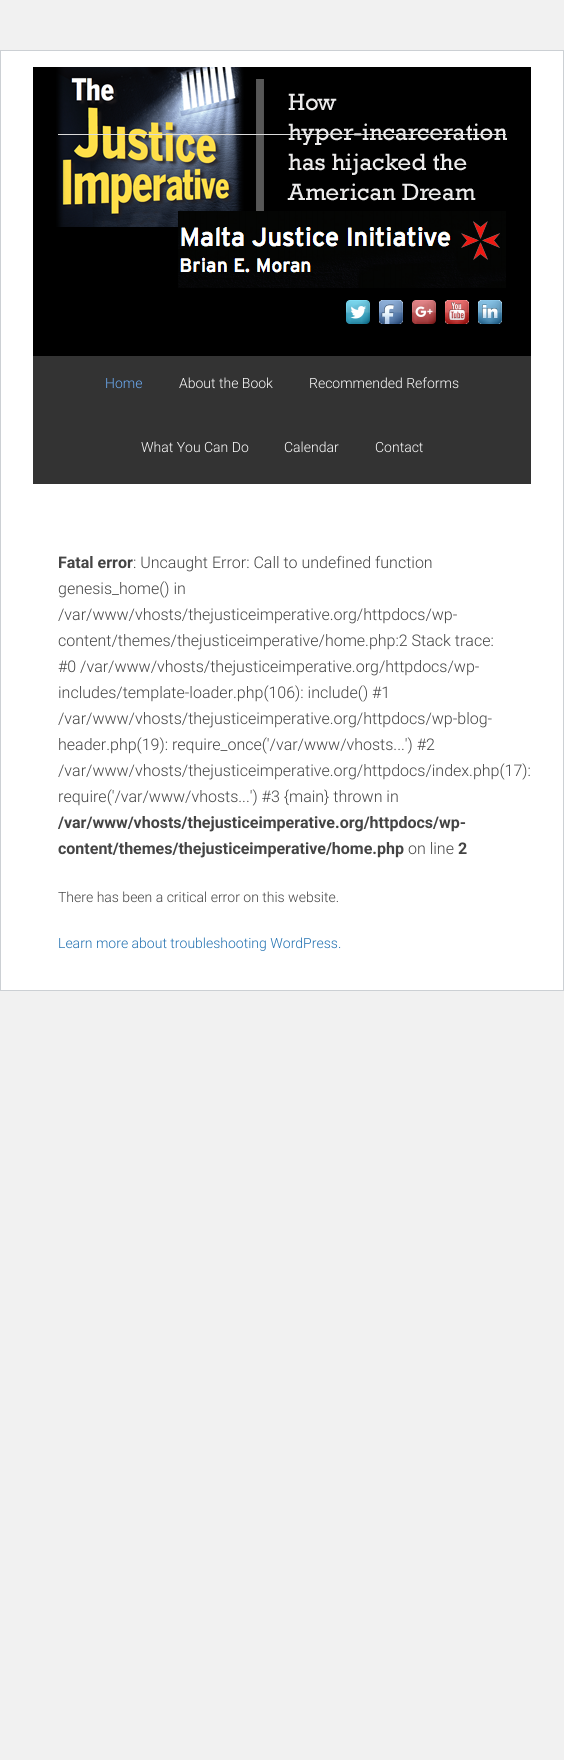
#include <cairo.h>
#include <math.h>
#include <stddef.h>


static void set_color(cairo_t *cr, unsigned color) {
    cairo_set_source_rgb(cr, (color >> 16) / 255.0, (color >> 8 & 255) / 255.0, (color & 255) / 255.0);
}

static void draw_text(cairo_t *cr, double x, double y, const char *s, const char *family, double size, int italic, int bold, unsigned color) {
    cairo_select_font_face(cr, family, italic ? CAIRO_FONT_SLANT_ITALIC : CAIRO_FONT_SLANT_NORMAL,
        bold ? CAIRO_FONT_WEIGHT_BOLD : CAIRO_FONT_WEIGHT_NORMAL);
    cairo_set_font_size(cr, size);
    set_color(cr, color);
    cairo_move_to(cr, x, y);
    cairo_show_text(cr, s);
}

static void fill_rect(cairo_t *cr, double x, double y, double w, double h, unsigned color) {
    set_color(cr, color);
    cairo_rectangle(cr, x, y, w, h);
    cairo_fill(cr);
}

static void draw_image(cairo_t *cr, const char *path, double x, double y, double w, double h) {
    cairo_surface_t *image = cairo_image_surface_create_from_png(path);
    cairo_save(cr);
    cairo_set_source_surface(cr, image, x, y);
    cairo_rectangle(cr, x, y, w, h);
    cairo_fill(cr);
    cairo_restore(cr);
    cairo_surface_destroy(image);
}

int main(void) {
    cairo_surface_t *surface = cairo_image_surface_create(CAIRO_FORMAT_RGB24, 564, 1760);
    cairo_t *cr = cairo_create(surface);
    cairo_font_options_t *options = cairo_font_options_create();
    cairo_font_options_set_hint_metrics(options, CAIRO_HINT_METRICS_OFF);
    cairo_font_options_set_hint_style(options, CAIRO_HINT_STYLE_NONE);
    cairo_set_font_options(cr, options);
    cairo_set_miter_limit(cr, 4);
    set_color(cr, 0xF1F1F1);
    cairo_paint(cr);
    set_color(cr, 0xFFFFFF);
    cairo_rectangle(cr, 0.5, 50.5, 563, 940);
    cairo_fill_preserve(cr);
    set_color(cr, 0xCCD0D4);
    cairo_set_line_width(cr, 1);
    cairo_stroke(cr);
    fill_rect(cr, 33, 67, 498, 289, 0x000000);
    draw_image(cr, "assets/img1.png", 56, 67, 451, 160);
    fill_rect(cr, 58, 134, 448, 1, 0xDADADA);
    draw_image(cr, "assets/img2.png", 178, 211, 328, 77);
    draw_image(cr, "assets/img3.png", 346, 300, 24, 24);
    draw_image(cr, "assets/img4.png", 379, 300, 24, 24);
    draw_image(cr, "assets/img5.png", 412, 300, 24, 24);
    draw_image(cr, "assets/img6.png", 445, 300, 24, 24);
    draw_image(cr, "assets/img7.png", 478, 300, 24, 24);
    fill_rect(cr, 33, 356, 498, 128, 0x333333);
    draw_text(cr, 105, 388, "Home", "Roboto Light", 14, 0, 0, 0x6CACF4);
    draw_text(cr, 179, 388, "About the Book", "Roboto Light", 14, 0, 0, 0xFFFFFF);
    draw_text(cr, 309, 388, "Recommended Reforms", "Roboto Light", 14, 0, 0, 0xFFFFFF);
    draw_text(cr, 141, 452, "What You Can Do", "Roboto Light", 14, 0, 0, 0xFFFFFF);
    draw_text(cr, 284, 452, "Calendar", "Roboto Light", 14, 0, 0, 0xFFFFFF);
    draw_text(cr, 375, 452, "Contact", "Roboto Light", 14, 0, 0, 0xFFFFFF);
    draw_text(cr, 58, 568, "Fatal error", "Roboto", 16, 0, 1, 0x444444);
    draw_text(cr, 133, 568, ": Uncaught Error: Call to undefined function", "Roboto Light", 16, 0, 0, 0x444444);
    draw_text(cr, 58, 594, "genesis_home() in", "Roboto Light", 16, 0, 0, 0x444444);
    draw_text(cr, 58, 620, "/var/www/vhosts/thejusticeimperative.org/httpdocs/wp-", "Roboto Light", 16, 0, 0, 0x444444);
    draw_text(cr, 58, 646, "content/themes/thejusticeimperative/home.php:2 Stack trace:", "Roboto Light", 16, 0, 0, 0x444444);
    draw_text(cr, 58, 672, "#0 /var/www/vhosts/thejusticeimperative.org/httpdocs/wp-", "Roboto Light", 16, 0, 0, 0x444444);
    draw_text(cr, 58, 698, "includes/template-loader.php(106): include() #1", "Roboto Light", 16, 0, 0, 0x444444);
    draw_text(cr, 58, 724, "/var/www/vhosts/thejusticeimperative.org/httpdocs/wp-blog-", "Roboto Light", 16, 0, 0, 0x444444);
    draw_text(cr, 58, 750, "header.php(19): require_once('/var/www/vhosts...') #2", "Roboto Light", 16, 0, 0, 0x444444);
    draw_text(cr, 58, 776, "/var/www/vhosts/thejusticeimperative.org/httpdocs/index.php(17):", "Roboto Light", 16, 0, 0, 0x444444);
    draw_text(cr, 58, 802, "require('/var/www/vhosts...') #3 {main} thrown in", "Roboto Light", 16, 0, 0, 0x444444);
    draw_text(cr, 58, 828, "/var/www/vhosts/thejusticeimperative.org/httpdocs/wp-", "Roboto", 16, 0, 1, 0x444444);
    draw_text(cr, 58, 854, "content/themes/thejusticeimperative/home.php", "Roboto", 16, 0, 1, 0x444444);
    draw_text(cr, 408, 854, "on line", "Roboto Light", 16, 0, 0, 0x444444);
    draw_text(cr, 458, 854, "2", "Roboto", 16, 0, 1, 0x444444);
    draw_text(cr, 58, 902, "There has been a critical error on this website.", "Roboto Light", 14, 0, 0, 0x444444);
    draw_text(cr, 58, 948, "Learn more about troubleshooting WordPress.", "Roboto Light", 14, 0, 0, 0x2271B1);
    cairo_surface_write_to_png(surface, "output.png");
    cairo_font_options_destroy(options);
    cairo_destroy(cr);
    cairo_surface_destroy(surface);
    return 0;
}
